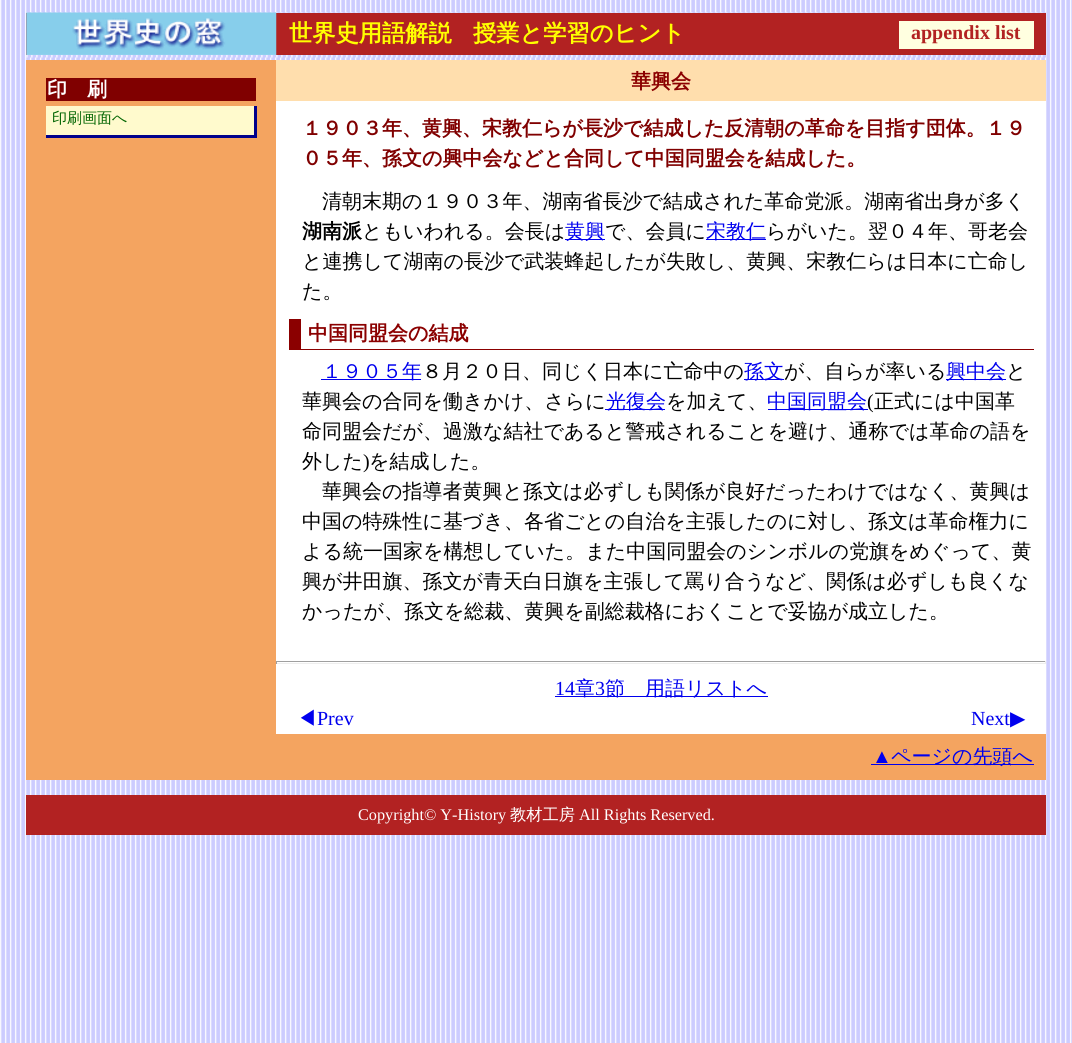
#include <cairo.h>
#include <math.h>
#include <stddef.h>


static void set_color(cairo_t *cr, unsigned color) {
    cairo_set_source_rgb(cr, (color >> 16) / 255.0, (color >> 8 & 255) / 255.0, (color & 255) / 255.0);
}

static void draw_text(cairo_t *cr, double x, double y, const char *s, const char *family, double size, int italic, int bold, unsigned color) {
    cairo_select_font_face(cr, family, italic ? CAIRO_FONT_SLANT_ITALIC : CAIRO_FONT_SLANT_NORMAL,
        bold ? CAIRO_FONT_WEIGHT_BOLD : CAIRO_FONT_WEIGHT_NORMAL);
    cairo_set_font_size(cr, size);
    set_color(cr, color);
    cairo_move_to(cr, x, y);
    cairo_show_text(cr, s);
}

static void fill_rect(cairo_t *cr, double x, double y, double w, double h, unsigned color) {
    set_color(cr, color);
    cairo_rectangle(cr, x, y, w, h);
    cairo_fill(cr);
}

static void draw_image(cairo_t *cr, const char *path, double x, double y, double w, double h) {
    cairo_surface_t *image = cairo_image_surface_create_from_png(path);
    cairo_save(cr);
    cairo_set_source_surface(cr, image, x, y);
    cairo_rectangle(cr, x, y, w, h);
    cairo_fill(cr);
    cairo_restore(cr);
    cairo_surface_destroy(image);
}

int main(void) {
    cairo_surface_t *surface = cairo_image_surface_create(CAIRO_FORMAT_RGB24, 1072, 1043);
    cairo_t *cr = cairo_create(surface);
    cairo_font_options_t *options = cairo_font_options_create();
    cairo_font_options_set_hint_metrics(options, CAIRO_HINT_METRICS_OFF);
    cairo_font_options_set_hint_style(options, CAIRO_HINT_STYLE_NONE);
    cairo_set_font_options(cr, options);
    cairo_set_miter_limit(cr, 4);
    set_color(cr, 0xFFFFFF);
    cairo_paint(cr);
    draw_image(cr, "assets/img1.png", 0, 0, 1072, 1043);
    draw_image(cr, "assets/img2.png", 26, 12, 1021, 46);
    fill_rect(cr, 26, 13, 1020, 42, 0xB22222);
    draw_image(cr, "assets/img3.png", 26, 12, 251, 43);
    draw_text(cr, 289, 41, "世界史用語解説", "WenQuanYi Zen Hei", 23.25, 0, 1, 0xFFFF00);
    draw_text(cr, 473, 41, "授業と学習のヒント", "WenQuanYi Zen Hei", 23.25, 0, 1, 0xFFFF00);
    fill_rect(cr, 899, 21, 135, 28, 0xFFFFE0);
    draw_text(cr, 911, 39, "appendix list", "Liberation Serif", 20, 0, 1, 0xB22222);
    fill_rect(cr, 26, 60, 1020, 720, 0xF4A460);
    fill_rect(cr, 46, 78, 210, 23, 0x800000);
    draw_text(cr, 47, 96, "印　刷", "WenQuanYi Zen Hei", 20, 0, 1, 0xFFFFFF);
    fill_rect(cr, 46, 106, 208, 29, 0xFFFACD);
    fill_rect(cr, 254, 106, 3, 32, 0x00008B);
    fill_rect(cr, 46, 135, 210, 3, 0x00008B);
    draw_text(cr, 52, 123, "印刷画面へ", "WenQuanYi Zen Hei Medium", 15, 0, 0, 0x006400);
    fill_rect(cr, 276, 101, 770, 633, 0xFFFFFF);
    fill_rect(cr, 276, 60, 770, 41, 0xFFDEAD);
    draw_text(cr, 631, 88, "華興会", "WenQuanYi Zen Hei", 20, 0, 1, 0x8B0000);
    draw_text(cr, 302, 135, "１９０３年、黄興、宋教仁らが長沙で結成した反清朝の革命を目指す団体。１９", "WenQuanYi Zen Hei", 20, 0, 1, 0x800000);
    draw_text(cr, 302, 165, "０５年、孫文の興中会などと合同して中国同盟会を結成した。", "WenQuanYi Zen Hei", 20, 0, 1, 0x800000);
    draw_text(cr, 322, 208, "清朝末期の１９０３年、湖南省長沙で結成された革命党派。湖南省出身が多く", "WenQuanYi Zen Hei Medium", 20, 0, 0, 0x000000);
    draw_text(cr, 302, 238, "湖南派", "WenQuanYi Zen Hei", 20, 0, 1, 0x000000);
    draw_text(cr, 362, 238, "ともいわれる。会長は", "WenQuanYi Zen Hei Medium", 20, 0, 0, 0x000000);
    fill_rect(cr, 565, 239, 40, 1, 0x0000EE);
    draw_text(cr, 565, 238, "黄興", "WenQuanYi Zen Hei Medium", 20, 0, 0, 0x0000EE);
    draw_text(cr, 605, 238, "で、会員に", "WenQuanYi Zen Hei Medium", 20, 0, 0, 0x000000);
    fill_rect(cr, 706, 239, 60, 1, 0x0000EE);
    draw_text(cr, 706, 238, "宋教仁", "WenQuanYi Zen Hei Medium", 20, 0, 0, 0x0000EE);
    draw_text(cr, 766, 238, "らがいた。翌０４年、哥老会", "WenQuanYi Zen Hei Medium", 20, 0, 0, 0x000000);
    draw_text(cr, 302, 268, "と連携して湖南の長沙で武装蜂起したが失敗し、黄興、宋教仁らは日本に亡命し", "WenQuanYi Zen Hei Medium", 20, 0, 0, 0x000000);
    draw_text(cr, 302, 298, "た。", "WenQuanYi Zen Hei Medium", 20, 0, 0, 0x000000);
    fill_rect(cr, 301, 349, 733, 1, 0x8B0000);
    fill_rect(cr, 289, 319, 12, 31, 0x8B0000);
    draw_text(cr, 308, 340, "中国同盟会の結成", "WenQuanYi Zen Hei", 20, 0, 1, 0x8B0000);
    fill_rect(cr, 321, 379, 100, 1, 0x0000EE);
    draw_text(cr, 322, 378, "１９０５年", "WenQuanYi Zen Hei Medium", 20, 0, 0, 0x0000EE);
    draw_text(cr, 422, 378, "８月２０日、同じく日本に亡命中の", "WenQuanYi Zen Hei Medium", 20, 0, 0, 0x000000);
    fill_rect(cr, 744, 379, 40, 1, 0x0000EE);
    draw_text(cr, 744, 378, "孫文", "WenQuanYi Zen Hei Medium", 20, 0, 0, 0x0000EE);
    draw_text(cr, 784, 378, "が、自らが率いる", "WenQuanYi Zen Hei Medium", 20, 0, 0, 0x000000);
    fill_rect(cr, 946, 379, 60, 1, 0x0000EE);
    draw_text(cr, 946, 378, "興中会", "WenQuanYi Zen Hei Medium", 20, 0, 0, 0x0000EE);
    draw_text(cr, 1006, 378, "と", "WenQuanYi Zen Hei Medium", 20, 0, 0, 0x000000);
    draw_text(cr, 302, 408, "華興会の合同を働きかけ、さらに", "WenQuanYi Zen Hei Medium", 20, 0, 0, 0x000000);
    fill_rect(cr, 605, 409, 60, 1, 0x0000EE);
    draw_text(cr, 606, 408, "光復会", "WenQuanYi Zen Hei Medium", 20, 0, 0, 0x0000EE);
    draw_text(cr, 666, 408, "を加えて、", "WenQuanYi Zen Hei Medium", 20, 0, 0, 0x000000);
    fill_rect(cr, 768, 409, 100, 1, 0x0000EE);
    draw_text(cr, 767, 408, "中国同盟会", "WenQuanYi Zen Hei Medium", 20, 0, 0, 0x0000EE);
    draw_text(cr, 867, 408, "(", "Liberation Serif", 20, 0, 0, 0x000000);
    draw_text(cr, 874, 408, "正式には中国革", "WenQuanYi Zen Hei Medium", 20, 0, 0, 0x000000);
    draw_text(cr, 302, 438, "命同盟会だが、過激な結社であると警戒されることを避け、通称では革命の語を", "WenQuanYi Zen Hei Medium", 20, 0, 0, 0x000000);
    draw_text(cr, 302, 468, "外した", "WenQuanYi Zen Hei Medium", 20, 0, 0, 0x000000);
    draw_text(cr, 363, 468, ")", "Liberation Serif", 20, 0, 0, 0x000000);
    draw_text(cr, 369, 468, "を結成した。", "WenQuanYi Zen Hei Medium", 20, 0, 0, 0x000000);
    draw_text(cr, 322, 498, "華興会の指導者黄興と孫文は必ずしも関係が良好だったわけではなく、黄興は", "WenQuanYi Zen Hei Medium", 20, 0, 0, 0x000000);
    draw_text(cr, 302, 528, "中国の特殊性に基づき、各省ごとの自治を主張したのに対し、孫文は革命権力に", "WenQuanYi Zen Hei Medium", 20, 0, 0, 0x000000);
    draw_text(cr, 302, 558, "よる統一国家を構想していた。また中国同盟会のシンボルの党旗をめぐって、黄", "WenQuanYi Zen Hei Medium", 20, 0, 0, 0x000000);
    draw_text(cr, 302, 588, "興が井田旗、孫文が青天白日旗を主張して罵り合うなど、関係は必ずしも良くな", "WenQuanYi Zen Hei Medium", 20, 0, 0, 0x000000);
    draw_text(cr, 302, 618, "かったが、孫文を総裁、黄興を副総裁格におくことで妥協が成立した。", "WenQuanYi Zen Hei Medium", 20, 0, 0, 0x000000);
    fill_rect(cr, 276, 661, 770, 1, 0x9F9F9F);
    fill_rect(cr, 1045, 661, 1, 3, 0xEEEEEE);
    fill_rect(cr, 276, 663, 770, 1, 0xEEEEEE);
    fill_rect(cr, 276, 661, 1, 3, 0x9F9F9F);
    draw_text(cr, 555, 695, "14", "Liberation Serif", 20, 0, 0, 0x0000EE);
    fill_rect(cr, 555, 696, 213, 1, 0x0000EE);
    draw_text(cr, 575, 695, "章", "WenQuanYi Zen Hei Medium", 20, 0, 0, 0x0000EE);
    draw_text(cr, 595, 695, "3", "Liberation Serif", 20, 0, 0, 0x0000EE);
    draw_text(cr, 605, 695, "節　用語リストへ", "WenQuanYi Zen Hei Medium", 20, 0, 0, 0x0000EE);
    draw_text(cr, 297, 725, "◀", "WenQuanYi Zen Hei Medium", 20, 0, 0, 0x0000EE);
    draw_text(cr, 317, 725, "Prev", "Liberation Serif", 20, 0, 0, 0x0000EE);
    draw_text(cr, 971, 725, "Next", "Liberation Serif", 20, 0, 0, 0x0000EE);
    draw_text(cr, 1010, 725, "▶", "DejaVu Sans", 20, 0, 0, 0x0000EE);
    draw_text(cr, 872, 763, "▲", "Liberation Serif", 20, 0, 0, 0x0000EE);
    fill_rect(cr, 871, 764, 163, 1, 0x0000EE);
    draw_text(cr, 891, 763, "ページの先頭へ", "WenQuanYi Zen Hei Medium", 20, 0, 0, 0x0000EE);
    fill_rect(cr, 26, 795, 1020, 40, 0xB22222);
    draw_text(cr, 358, 820, "Copyright© Y-History", "Liberation Serif", 16.25, 0, 0, 0xFFFFFF);
    draw_text(cr, 510, 820, "教材工房", "WenQuanYi Zen Hei Medium", 16.25, 0, 0, 0xFFFFFF);
    draw_text(cr, 579, 820, "All Rights Reserved.", "Liberation Serif", 16.25, 0, 0, 0xFFFFFF);
    cairo_surface_write_to_png(surface, "output.png");
    cairo_font_options_destroy(options);
    cairo_destroy(cr);
    cairo_surface_destroy(surface);
    return 0;
}
